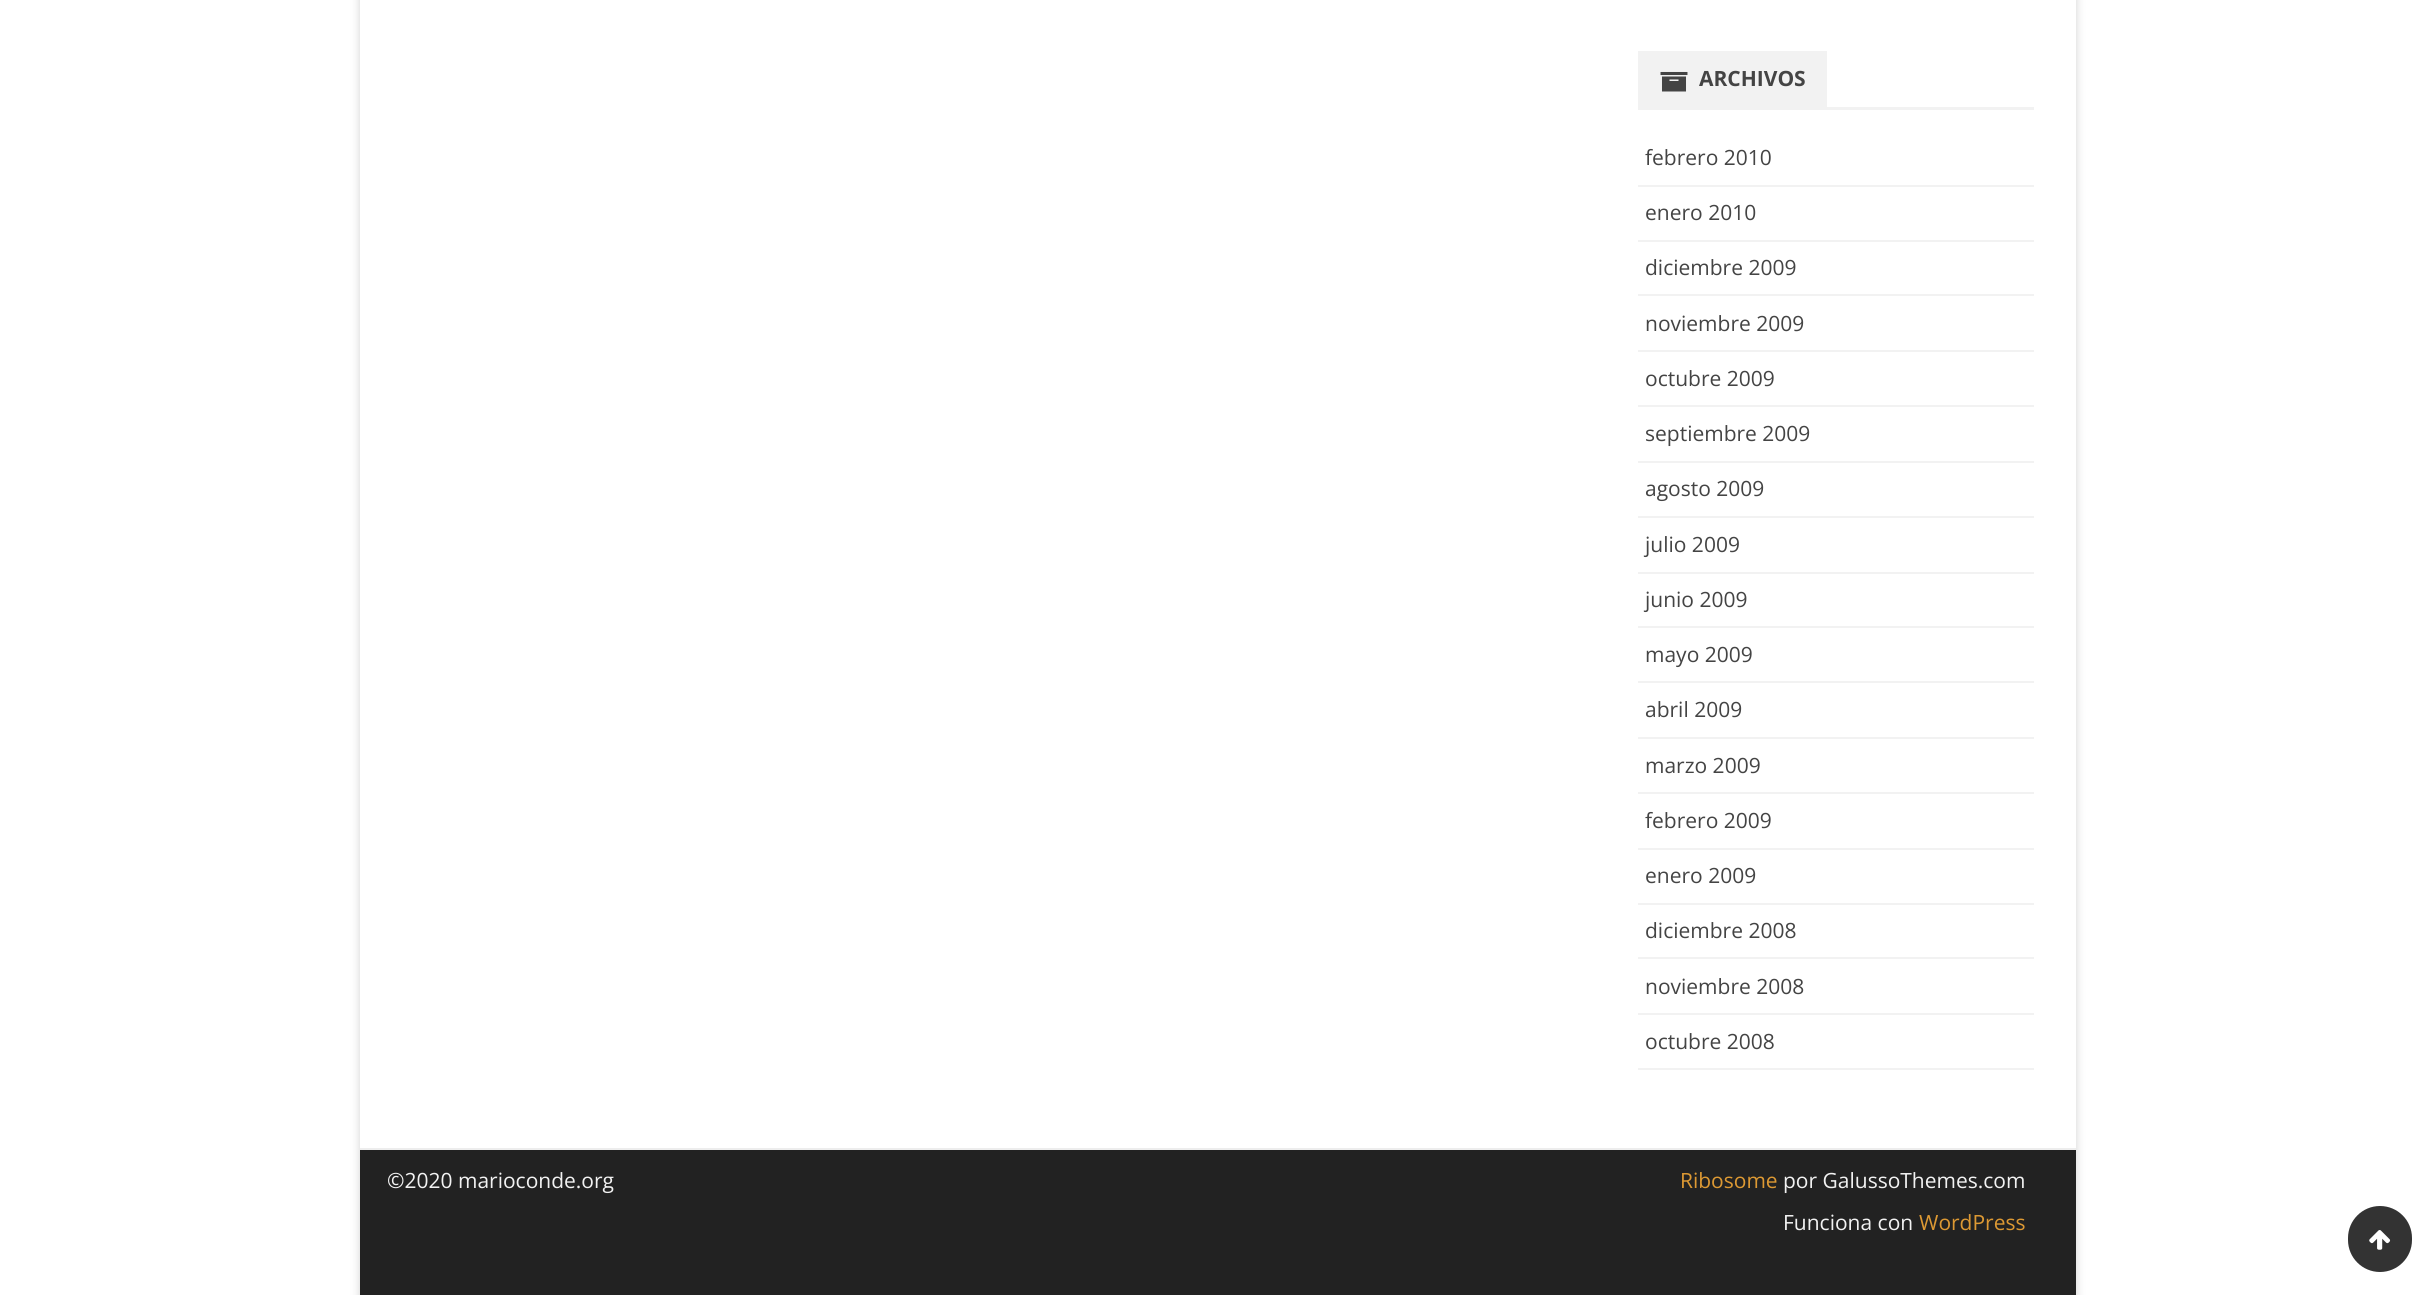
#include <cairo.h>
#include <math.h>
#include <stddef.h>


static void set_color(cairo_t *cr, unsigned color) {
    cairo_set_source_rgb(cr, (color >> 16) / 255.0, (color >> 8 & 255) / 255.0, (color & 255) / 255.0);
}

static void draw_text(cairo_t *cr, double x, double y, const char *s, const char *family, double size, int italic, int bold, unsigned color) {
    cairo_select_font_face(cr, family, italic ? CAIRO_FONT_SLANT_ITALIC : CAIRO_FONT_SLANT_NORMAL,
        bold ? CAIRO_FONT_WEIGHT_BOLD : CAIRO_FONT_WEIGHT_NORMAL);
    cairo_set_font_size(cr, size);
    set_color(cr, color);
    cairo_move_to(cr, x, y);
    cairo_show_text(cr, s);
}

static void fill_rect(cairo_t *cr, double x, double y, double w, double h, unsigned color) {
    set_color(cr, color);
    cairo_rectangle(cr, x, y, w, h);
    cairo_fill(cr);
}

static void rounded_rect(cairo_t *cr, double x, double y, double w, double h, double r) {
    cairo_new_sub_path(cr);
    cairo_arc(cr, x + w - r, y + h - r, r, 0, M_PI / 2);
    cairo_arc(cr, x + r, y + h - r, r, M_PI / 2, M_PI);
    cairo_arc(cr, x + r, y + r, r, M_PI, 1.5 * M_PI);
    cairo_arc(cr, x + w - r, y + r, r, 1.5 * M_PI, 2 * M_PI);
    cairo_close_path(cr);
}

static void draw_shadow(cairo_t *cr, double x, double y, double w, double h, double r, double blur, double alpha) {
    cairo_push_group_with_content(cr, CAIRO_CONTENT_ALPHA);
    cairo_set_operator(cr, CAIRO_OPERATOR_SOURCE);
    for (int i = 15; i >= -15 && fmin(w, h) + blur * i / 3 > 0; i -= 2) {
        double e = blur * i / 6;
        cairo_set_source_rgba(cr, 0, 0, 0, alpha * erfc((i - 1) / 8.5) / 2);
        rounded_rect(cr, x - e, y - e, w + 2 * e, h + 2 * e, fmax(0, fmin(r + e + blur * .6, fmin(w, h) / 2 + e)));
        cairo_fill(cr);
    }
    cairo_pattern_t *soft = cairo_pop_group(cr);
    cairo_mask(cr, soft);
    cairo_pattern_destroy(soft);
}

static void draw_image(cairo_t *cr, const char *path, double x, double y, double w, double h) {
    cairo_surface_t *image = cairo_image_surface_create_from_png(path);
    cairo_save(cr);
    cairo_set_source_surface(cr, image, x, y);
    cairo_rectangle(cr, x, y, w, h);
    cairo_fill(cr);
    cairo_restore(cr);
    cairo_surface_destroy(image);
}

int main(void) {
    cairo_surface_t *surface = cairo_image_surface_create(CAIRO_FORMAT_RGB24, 2436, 1295);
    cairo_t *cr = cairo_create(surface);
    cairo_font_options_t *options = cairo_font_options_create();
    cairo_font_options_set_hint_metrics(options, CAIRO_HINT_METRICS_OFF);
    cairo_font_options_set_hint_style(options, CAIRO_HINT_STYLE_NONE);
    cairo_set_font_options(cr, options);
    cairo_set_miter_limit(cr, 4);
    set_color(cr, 0xFFFFFF);
    cairo_paint(cr);
    cairo_save(cr);
    cairo_set_fill_rule(cr, CAIRO_FILL_RULE_EVEN_ODD);
    cairo_new_path(cr);
    cairo_move_to(cr, 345, 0);
    cairo_line_to(cr, 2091, 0);
    cairo_line_to(cr, 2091, 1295);
    cairo_line_to(cr, 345, 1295);
    cairo_close_path(cr);
    cairo_move_to(cr, 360, -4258);
    cairo_line_to(cr, 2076, -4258);
    cairo_line_to(cr, 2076, 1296);
    cairo_line_to(cr, 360, 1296);
    cairo_close_path(cr);
    cairo_clip(cr);
    set_color(cr, 0x646464);
    draw_shadow(cr, 360, -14, 1716, 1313, 0, 4.5, 0.3);
    cairo_restore(cr);
    fill_rect(cr, 1638, 107, 396, 3, 0xF2F2F2);
    fill_rect(cr, 1638, 51, 189, 56, 0xF2F2F2);
    draw_image(cr, "assets/img1.png", 1660, 71, 28, 21);
    draw_text(cr, 1699, 86, "ARCHIVOS", "Open Sans", 21, 0, 1, 0x444444);
    fill_rect(cr, 1638, 185, 396, 2, 0xF2F2F2);
    draw_text(cr, 1645, 165, "febrero 2010", "Open Sans", 21, 0, 0, 0x444444);
    fill_rect(cr, 1638, 240, 396, 2, 0xF2F2F2);
    draw_text(cr, 1645, 220, "enero 2010", "Open Sans", 21, 0, 0, 0x444444);
    fill_rect(cr, 1638, 294, 396, 2, 0xF2F2F2);
    draw_text(cr, 1645, 275, "diciembre 2009", "Open Sans", 21, 0, 0, 0x444444);
    fill_rect(cr, 1638, 350, 396, 2, 0xF2F2F2);
    draw_text(cr, 1645, 331, "noviembre 2009", "Open Sans", 21, 0, 0, 0x444444);
    fill_rect(cr, 1638, 405, 396, 2, 0xF2F2F2);
    draw_text(cr, 1645, 386, "octubre 2009", "Open Sans", 21, 0, 0, 0x444444);
    fill_rect(cr, 1638, 461, 396, 2, 0xF2F2F2);
    draw_text(cr, 1645, 441, "septiembre 2009", "Open Sans", 21, 0, 0, 0x444444);
    fill_rect(cr, 1638, 516, 396, 2, 0xF2F2F2);
    draw_text(cr, 1645, 496, "agosto 2009", "Open Sans", 21, 0, 0, 0x444444);
    fill_rect(cr, 1638, 572, 396, 2, 0xF2F2F2);
    draw_text(cr, 1645, 552, "julio 2009", "Open Sans", 21, 0, 0, 0x444444);
    fill_rect(cr, 1638, 626, 396, 2, 0xF2F2F2);
    draw_text(cr, 1645, 607, "junio 2009", "Open Sans", 21, 0, 0, 0x444444);
    fill_rect(cr, 1638, 681, 396, 2, 0xF2F2F2);
    draw_text(cr, 1645, 662, "mayo 2009", "Open Sans", 21, 0, 0, 0x444444);
    fill_rect(cr, 1638, 737, 396, 2, 0xF2F2F2);
    draw_text(cr, 1645, 717, "abril 2009", "Open Sans", 21, 0, 0, 0x444444);
    fill_rect(cr, 1638, 792, 396, 2, 0xF2F2F2);
    draw_text(cr, 1645, 773, "marzo 2009", "Open Sans", 21, 0, 0, 0x444444);
    fill_rect(cr, 1638, 848, 396, 2, 0xF2F2F2);
    draw_text(cr, 1645, 828, "febrero 2009", "Open Sans", 21, 0, 0, 0x444444);
    fill_rect(cr, 1638, 903, 396, 2, 0xF2F2F2);
    draw_text(cr, 1645, 883, "enero 2009", "Open Sans", 21, 0, 0, 0x444444);
    fill_rect(cr, 1638, 957, 396, 2, 0xF2F2F2);
    draw_text(cr, 1645, 938, "diciembre 2008", "Open Sans", 21, 0, 0, 0x444444);
    fill_rect(cr, 1638, 1013, 396, 2, 0xF2F2F2);
    draw_text(cr, 1645, 994, "noviembre 2008", "Open Sans", 21, 0, 0, 0x444444);
    fill_rect(cr, 1638, 1068, 396, 2, 0xF2F2F2);
    draw_text(cr, 1645, 1049, "octubre 2008", "Open Sans", 21, 0, 0, 0x444444);
    fill_rect(cr, 360, 1150, 1716, 145, 0x222222);
    fill_rect(cr, 360, 1148, 1716, 2, 0xEDEDED);
    draw_text(cr, 387, 1188, "©2020 marioconde.org", "Open Sans", 21, 0, 0, 0xF2F2F2);
    draw_text(cr, 1680, 1188, "Ribosome", "Open Sans", 21, 0, 0, 0xDD9933);
    draw_text(cr, 1783, 1188, "por GalussoThemes.com", "Open Sans", 21, 0, 0, 0xF2F2F2);
    draw_text(cr, 1783, 1230, "Funciona con", "Open Sans", 21, 0, 0, 0xF2F2F2);
    draw_text(cr, 1919, 1230, "WordPress", "Open Sans", 21, 0, 0, 0xDD9933);
    set_color(cr, 0x333333);
    rounded_rect(cr, 2346.5, 1204.5, 67, 69, 33.5);
    cairo_fill_preserve(cr);
    set_color(cr, 0xFFFFFF);
    cairo_set_line_width(cr, 3);
    cairo_stroke(cr);
    draw_image(cr, "assets/img2.png", 2369, 1230, 22, 20);
    cairo_surface_write_to_png(surface, "output.png");
    cairo_font_options_destroy(options);
    cairo_destroy(cr);
    cairo_surface_destroy(surface);
    return 0;
}
